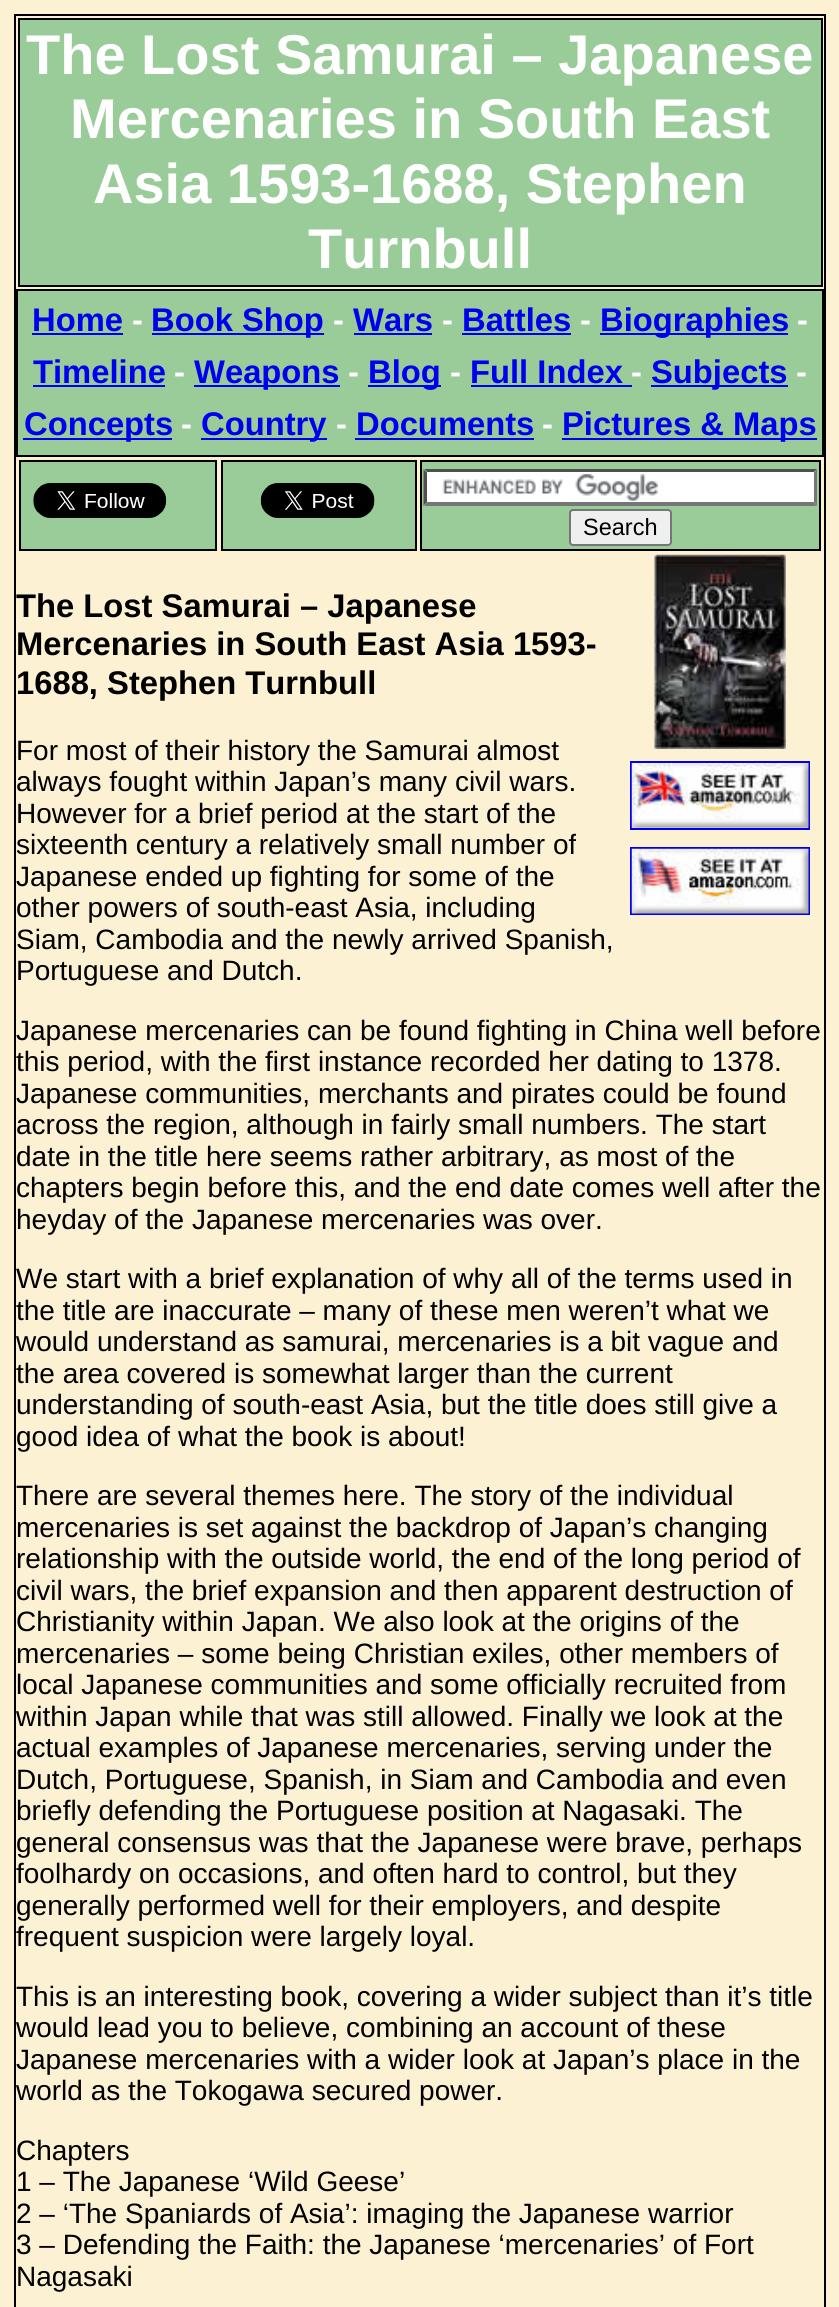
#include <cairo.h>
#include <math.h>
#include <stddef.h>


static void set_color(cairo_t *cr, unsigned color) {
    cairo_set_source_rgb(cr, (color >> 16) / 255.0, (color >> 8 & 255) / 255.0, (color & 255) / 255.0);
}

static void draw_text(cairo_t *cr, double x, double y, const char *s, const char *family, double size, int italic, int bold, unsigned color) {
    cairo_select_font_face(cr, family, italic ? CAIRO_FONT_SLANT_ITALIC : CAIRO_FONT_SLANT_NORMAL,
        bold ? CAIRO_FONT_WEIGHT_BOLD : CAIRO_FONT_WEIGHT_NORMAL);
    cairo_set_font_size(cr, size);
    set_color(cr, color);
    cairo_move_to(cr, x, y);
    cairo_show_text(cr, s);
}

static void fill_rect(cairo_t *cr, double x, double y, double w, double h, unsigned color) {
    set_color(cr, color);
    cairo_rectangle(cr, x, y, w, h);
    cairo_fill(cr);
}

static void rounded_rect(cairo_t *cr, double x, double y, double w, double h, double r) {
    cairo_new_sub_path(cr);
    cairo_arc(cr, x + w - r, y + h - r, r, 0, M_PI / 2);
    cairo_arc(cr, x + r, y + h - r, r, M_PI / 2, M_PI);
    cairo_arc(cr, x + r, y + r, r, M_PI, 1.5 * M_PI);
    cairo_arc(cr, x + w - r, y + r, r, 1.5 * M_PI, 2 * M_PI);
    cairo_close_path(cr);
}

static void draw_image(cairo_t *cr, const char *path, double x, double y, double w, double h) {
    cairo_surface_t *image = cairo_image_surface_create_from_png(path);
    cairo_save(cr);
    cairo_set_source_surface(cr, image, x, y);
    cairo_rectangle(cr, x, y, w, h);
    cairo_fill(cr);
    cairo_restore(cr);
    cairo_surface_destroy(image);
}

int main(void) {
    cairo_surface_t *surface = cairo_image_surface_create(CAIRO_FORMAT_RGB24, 839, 2307);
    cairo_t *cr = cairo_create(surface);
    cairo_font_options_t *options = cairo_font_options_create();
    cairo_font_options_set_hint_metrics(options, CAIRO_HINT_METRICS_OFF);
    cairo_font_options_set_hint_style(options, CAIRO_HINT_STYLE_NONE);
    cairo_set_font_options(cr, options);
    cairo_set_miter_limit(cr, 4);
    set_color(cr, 0xFDF1D4);
    cairo_paint(cr);
    cairo_rectangle(cr, 15, 15, 810, 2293);
    set_color(cr, 0x000000);
    cairo_stroke(cr);
    set_color(cr, 0x99CC99);
    cairo_rectangle(cr, 19, 19, 803, 267);
    cairo_fill_preserve(cr);
    set_color(cr, 0x000000);
    cairo_stroke(cr);
    draw_text(cr, 26, 74, "The Lost Samurai – Japanese", "Liberation Sans", 56, 0, 1, 0xFFFFFF);
    draw_text(cr, 70, 138, "Mercenaries in South East", "Liberation Sans", 56, 0, 1, 0xFFFFFF);
    draw_text(cr, 93, 203, "Asia 1593-1688, Stephen", "Liberation Sans", 56, 0, 1, 0xFFFFFF);
    draw_text(cr, 308, 268, "Turnbull", "Liberation Sans", 56, 0, 1, 0xFFFFFF);
    set_color(cr, 0x99CC99);
    cairo_rectangle(cr, 17, 290, 806, 166);
    cairo_fill_preserve(cr);
    set_color(cr, 0x000000);
    cairo_stroke(cr);
    draw_text(cr, 32, 331, "Home", "Liberation Sans", 32.75, 0, 1, 0x0000EE);
    fill_rect(cr, 32, 333, 91, 2, 0x0000EE);
    draw_text(cr, 132, 331, "-", "Liberation Sans", 32.75, 0, 1, 0xFFFFFF);
    fill_rect(cr, 152, 333, 172, 2, 0x0000EE);
    draw_text(cr, 151, 331, "Book Shop", "Liberation Sans", 32.75, 0, 1, 0x0000EE);
    draw_text(cr, 333, 331, "-", "Liberation Sans", 32.75, 0, 1, 0xFFFFFF);
    draw_text(cr, 353, 331, "Wars", "Liberation Sans", 32.75, 0, 1, 0x0000EE);
    fill_rect(cr, 354, 333, 78, 2, 0x0000EE);
    draw_text(cr, 442, 331, "-", "Liberation Sans", 32.75, 0, 1, 0xFFFFFF);
    draw_text(cr, 462, 331, "Battles", "Liberation Sans", 32.75, 0, 1, 0x0000EE);
    fill_rect(cr, 462, 333, 109, 2, 0x0000EE);
    draw_text(cr, 580, 331, "-", "Liberation Sans", 32.75, 0, 1, 0xFFFFFF);
    fill_rect(cr, 600, 333, 188, 2, 0x0000EE);
    draw_text(cr, 600, 331, "Biographies", "Liberation Sans", 32.75, 0, 1, 0x0000EE);
    draw_text(cr, 797, 331, "-", "Liberation Sans", 32.75, 0, 1, 0xFFFFFF);
    draw_text(cr, 33, 383, "Timeline", "Liberation Sans", 32.75, 0, 1, 0x0000EE);
    fill_rect(cr, 33, 385, 132, 2, 0x0000EE);
    draw_text(cr, 174, 383, "-", "Liberation Sans", 32.75, 0, 1, 0xFFFFFF);
    fill_rect(cr, 194, 385, 146, 2, 0x0000EE);
    draw_text(cr, 194, 383, "Weapons", "Liberation Sans", 32.75, 0, 1, 0x0000EE);
    draw_text(cr, 348, 383, "-", "Liberation Sans", 32.75, 0, 1, 0xFFFFFF);
    fill_rect(cr, 368, 385, 73, 2, 0x0000EE);
    draw_text(cr, 368, 383, "Blog", "Liberation Sans", 32.75, 0, 1, 0x0000EE);
    draw_text(cr, 450, 383, "-", "Liberation Sans", 32.75, 0, 1, 0xFFFFFF);
    draw_text(cr, 470, 383, "Full Index", "Liberation Sans", 32.75, 0, 1, 0x0000EE);
    draw_text(cr, 631, 383, "-", "Liberation Sans", 32.75, 0, 1, 0xFFFFFF);
    fill_rect(cr, 471, 385, 161, 2, 0x0000EE);
    fill_rect(cr, 651, 385, 137, 2, 0x0000EE);
    draw_text(cr, 651, 383, "Subjects", "Liberation Sans", 32.75, 0, 1, 0x0000EE);
    draw_text(cr, 796, 383, "-", "Liberation Sans", 32.75, 0, 1, 0xFFFFFF);
    fill_rect(cr, 23, 438, 149, 2, 0x0000EE);
    draw_text(cr, 24, 435, "Concepts", "Liberation Sans", 32.75, 0, 1, 0x0000EE);
    draw_text(cr, 181, 435, "-", "Liberation Sans", 32.75, 0, 1, 0xFFFFFF);
    fill_rect(cr, 201, 438, 126, 2, 0x0000EE);
    draw_text(cr, 201, 435, "Country", "Liberation Sans", 32.75, 0, 1, 0x0000EE);
    draw_text(cr, 336, 435, "-", "Liberation Sans", 32.75, 0, 1, 0xFFFFFF);
    draw_text(cr, 356, 435, "Documents", "Liberation Sans", 32.75, 0, 1, 0x0000EE);
    fill_rect(cr, 355, 438, 179, 2, 0x0000EE);
    draw_text(cr, 542, 435, "-", "Liberation Sans", 32.75, 0, 1, 0xFFFFFF);
    fill_rect(cr, 562, 438, 255, 2, 0x0000EE);
    draw_text(cr, 562, 435, "Pictures & Maps", "Liberation Sans", 32.75, 0, 1, 0x0000EE);
    set_color(cr, 0x99CC99);
    cairo_rectangle(cr, 20, 461, 196, 89);
    cairo_fill_preserve(cr);
    set_color(cr, 0x000000);
    cairo_stroke(cr);
    draw_image(cr, "assets/img1.png", 33, 483, 134, 35);
    set_color(cr, 0x99CC99);
    cairo_rectangle(cr, 222, 461, 194, 89);
    cairo_fill_preserve(cr);
    set_color(cr, 0x000000);
    cairo_stroke(cr);
    draw_image(cr, "assets/img2.png", 260, 483, 115, 35);
    set_color(cr, 0x99CC99);
    cairo_rectangle(cr, 421, 461, 399, 89);
    cairo_fill_preserve(cr);
    set_color(cr, 0x000000);
    cairo_stroke(cr);
    fill_rect(cr, 424, 469, 393, 37, 0xFFFFFF);
    draw_image(cr, "assets/img3.png", 442, 474, 216, 27);
    set_color(cr, 0x4F4F4F);
    cairo_new_path(cr);
    cairo_move_to(cr, 424, 469);
    cairo_line_to(cr, 817, 469);
    cairo_line_to(cr, 814, 472);
    cairo_line_to(cr, 427, 472);
    cairo_close_path(cr);
    cairo_fill(cr);
    set_color(cr, 0x767676);
    cairo_new_path(cr);
    cairo_move_to(cr, 817, 469);
    cairo_line_to(cr, 817, 506);
    cairo_line_to(cr, 814, 502);
    cairo_line_to(cr, 814, 472.5);
    cairo_close_path(cr);
    cairo_fill(cr);
    cairo_new_path(cr);
    cairo_move_to(cr, 817, 506);
    cairo_line_to(cr, 424, 506);
    cairo_line_to(cr, 427, 502);
    cairo_line_to(cr, 814, 502);
    cairo_close_path(cr);
    cairo_fill(cr);
    set_color(cr, 0x4F4F4F);
    cairo_new_path(cr);
    cairo_move_to(cr, 423.5, 506);
    cairo_line_to(cr, 423.5, 469);
    cairo_line_to(cr, 427, 472.5);
    cairo_line_to(cr, 427, 502);
    cairo_close_path(cr);
    cairo_fill(cr);
    set_color(cr, 0xEFEFEF);
    rounded_rect(cr, 570, 510, 101, 35, 3);
    cairo_fill_preserve(cr);
    set_color(cr, 0x767676);
    cairo_stroke(cr);
    draw_text(cr, 583, 535, "Search", "Liberation Sans", 23.5, 0, 0, 0x000000);
    draw_text(cr, 16, 617, "The Lost Samurai – Japanese", "Liberation Sans", 32.75, 0, 1, 0x000000);
    draw_text(cr, 16, 655, "Mercenaries in South East Asia 1593-", "Liberation Sans", 32.75, 0, 1, 0x000000);
    draw_text(cr, 16, 694, "1688, Stephen Turnbull", "Liberation Sans", 32.75, 0, 1, 0x000000);
    draw_image(cr, "assets/img4.png", 654, 554, 132, 195);
    cairo_rectangle(cr, 631, 762, 178, 67);
    set_color(cr, 0x0000EE);
    cairo_stroke(cr);
    draw_image(cr, "assets/img5.png", 631, 763, 178, 65);
    cairo_rectangle(cr, 631, 848, 178, 66);
    cairo_stroke(cr);
    draw_image(cr, "assets/img6.png", 631, 848, 178, 66);
    draw_text(cr, 16, 760, "For most of their history the Samurai almost", "Liberation Sans", 28, 0, 0, 0x000000);
    draw_text(cr, 16, 791, "always fought within Japan’s many civil wars.", "Liberation Sans", 28, 0, 0, 0x000000);
    draw_text(cr, 16, 823, "However for a brief period at the start of the", "Liberation Sans", 28, 0, 0, 0x000000);
    draw_text(cr, 16, 854, "sixteenth century a relatively small number of", "Liberation Sans", 28, 0, 0, 0x000000);
    draw_text(cr, 16, 886, "Japanese ended up fighting for some of the", "Liberation Sans", 28, 0, 0, 0x000000);
    draw_text(cr, 16, 917, "other powers of south-east Asia, including", "Liberation Sans", 28, 0, 0, 0x000000);
    draw_text(cr, 16, 949, "Siam, Cambodia and the newly arrived Spanish,", "Liberation Sans", 28, 0, 0, 0x000000);
    draw_text(cr, 16, 980, "Portuguese and Dutch.", "Liberation Sans", 28, 0, 0, 0x000000);
    draw_text(cr, 16, 1040, "Japanese mercenaries can be found fighting in China well before", "Liberation Sans", 28, 0, 0, 0x000000);
    draw_text(cr, 16, 1071, "this period, with the first instance recorded her dating to 1378.", "Liberation Sans", 28, 0, 0, 0x000000);
    draw_text(cr, 16, 1103, "Japanese communities, merchants and pirates could be found", "Liberation Sans", 28, 0, 0, 0x000000);
    draw_text(cr, 16, 1134, "across the region, although in fairly small numbers. The start", "Liberation Sans", 28, 0, 0, 0x000000);
    draw_text(cr, 16, 1166, "date in the title here seems rather arbitrary, as most of the", "Liberation Sans", 28, 0, 0, 0x000000);
    draw_text(cr, 16, 1197, "chapters begin before this, and the end date comes well after the", "Liberation Sans", 28, 0, 0, 0x000000);
    draw_text(cr, 16, 1229, "heyday of the Japanese mercenaries was over.", "Liberation Sans", 28, 0, 0, 0x000000);
    draw_text(cr, 16, 1288, "We start with a brief explanation of why all of the terms used in", "Liberation Sans", 28, 0, 0, 0x000000);
    draw_text(cr, 16, 1320, "the title are inaccurate – many of these men weren’t what we", "Liberation Sans", 28, 0, 0, 0x000000);
    draw_text(cr, 16, 1351, "would understand as samurai, mercenaries is a bit vague and", "Liberation Sans", 28, 0, 0, 0x000000);
    draw_text(cr, 16, 1383, "the area covered is somewhat larger than the current", "Liberation Sans", 28, 0, 0, 0x000000);
    draw_text(cr, 16, 1414, "understanding of south-east Asia, but the title does still give a", "Liberation Sans", 28, 0, 0, 0x000000);
    draw_text(cr, 16, 1446, "good idea of what the book is about!", "Liberation Sans", 28, 0, 0, 0x000000);
    draw_text(cr, 16, 1505, "There are several themes here. The story of the individual", "Liberation Sans", 28, 0, 0, 0x000000);
    draw_text(cr, 16, 1537, "mercenaries is set against the backdrop of Japan’s changing", "Liberation Sans", 28, 0, 0, 0x000000);
    draw_text(cr, 16, 1568, "relationship with the outside world, the end of the long period of", "Liberation Sans", 28, 0, 0, 0x000000);
    draw_text(cr, 16, 1600, "civil wars, the brief expansion and then apparent destruction of", "Liberation Sans", 28, 0, 0, 0x000000);
    draw_text(cr, 16, 1631, "Christianity within Japan. We also look at the origins of the", "Liberation Sans", 28, 0, 0, 0x000000);
    draw_text(cr, 16, 1663, "mercenaries – some being Christian exiles, other members of", "Liberation Sans", 28, 0, 0, 0x000000);
    draw_text(cr, 16, 1694, "local Japanese communities and some officially recruited from", "Liberation Sans", 28, 0, 0, 0x000000);
    draw_text(cr, 16, 1726, "within Japan while that was still allowed. Finally we look at the", "Liberation Sans", 28, 0, 0, 0x000000);
    draw_text(cr, 16, 1757, "actual examples of Japanese mercenaries, serving under the", "Liberation Sans", 28, 0, 0, 0x000000);
    draw_text(cr, 16, 1789, "Dutch, Portuguese, Spanish, in Siam and Cambodia and even", "Liberation Sans", 28, 0, 0, 0x000000);
    draw_text(cr, 16, 1820, "briefly defending the Portuguese position at Nagasaki. The", "Liberation Sans", 28, 0, 0, 0x000000);
    draw_text(cr, 16, 1852, "general consensus was that the Japanese were brave, perhaps", "Liberation Sans", 28, 0, 0, 0x000000);
    draw_text(cr, 16, 1883, "foolhardy on occasions, and often hard to control, but they", "Liberation Sans", 28, 0, 0, 0x000000);
    draw_text(cr, 16, 1915, "generally performed well for their employers, and despite", "Liberation Sans", 28, 0, 0, 0x000000);
    draw_text(cr, 16, 1946, "frequent suspicion were largely loyal.", "Liberation Sans", 28, 0, 0, 0x000000);
    draw_text(cr, 16, 2006, "This is an interesting book, covering a wider subject than it’s title", "Liberation Sans", 28, 0, 0, 0x000000);
    draw_text(cr, 16, 2037, "would lead you to believe, combining an account of these", "Liberation Sans", 28, 0, 0, 0x000000);
    draw_text(cr, 16, 2069, "Japanese mercenaries with a wider look at Japan’s place in the", "Liberation Sans", 28, 0, 0, 0x000000);
    draw_text(cr, 16, 2100, "world as the Tokogawa secured power.", "Liberation Sans", 28, 0, 0, 0x000000);
    draw_text(cr, 16, 2160, "Chapters", "Liberation Sans", 28, 0, 0, 0x000000);
    draw_text(cr, 16, 2191, "1 – The Japanese ‘Wild Geese’", "Liberation Sans", 28, 0, 0, 0x000000);
    draw_text(cr, 16, 2223, "2 – ‘The Spaniards of Asia’: imaging the Japanese warrior", "Liberation Sans", 28, 0, 0, 0x000000);
    draw_text(cr, 16, 2254, "3 – Defending the Faith: the Japanese ‘mercenaries’ of Fort", "Liberation Sans", 28, 0, 0, 0x000000);
    draw_text(cr, 16, 2286, "Nagasaki", "Liberation Sans", 28, 0, 0, 0x000000);
    cairo_surface_write_to_png(surface, "output.png");
    cairo_font_options_destroy(options);
    cairo_destroy(cr);
    cairo_surface_destroy(surface);
    return 0;
}
